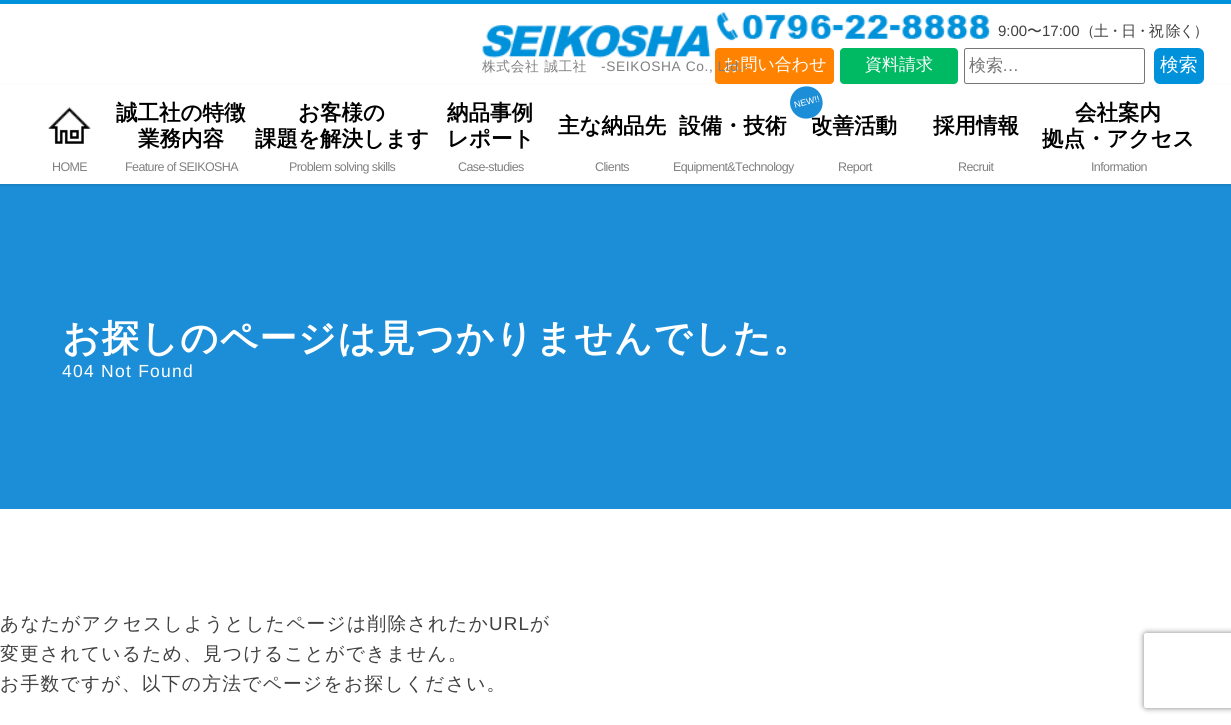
#include <cairo.h>
#include <math.h>
#include <stddef.h>


static void set_color(cairo_t *cr, unsigned color) {
    cairo_set_source_rgb(cr, (color >> 16) / 255.0, (color >> 8 & 255) / 255.0, (color & 255) / 255.0);
}

static void draw_text(cairo_t *cr, double x, double y, const char *s, const char *family, double size, int italic, int bold, unsigned color) {
    cairo_select_font_face(cr, family, italic ? CAIRO_FONT_SLANT_ITALIC : CAIRO_FONT_SLANT_NORMAL,
        bold ? CAIRO_FONT_WEIGHT_BOLD : CAIRO_FONT_WEIGHT_NORMAL);
    cairo_set_font_size(cr, size);
    set_color(cr, color);
    cairo_move_to(cr, x, y);
    cairo_show_text(cr, s);
}

static void draw_spaced(cairo_t *cr, double x, double y, const char *s, double letter, double word) {
    cairo_move_to(cr, x, y);
    while (*s) {
        char ch[5] = {0};
        int n = 0;
        do ch[n++] = *s++; while ((*s & 0xC0) == 0x80);
        cairo_show_text(cr, ch);
        cairo_rel_move_to(cr, letter + word * (*ch == ' '), 0);
    }
}

static void fill_rect(cairo_t *cr, double x, double y, double w, double h, unsigned color) {
    set_color(cr, color);
    cairo_rectangle(cr, x, y, w, h);
    cairo_fill(cr);
}

static void rounded_rect(cairo_t *cr, double x, double y, double w, double h, double r) {
    cairo_new_sub_path(cr);
    cairo_arc(cr, x + w - r, y + h - r, r, 0, M_PI / 2);
    cairo_arc(cr, x + r, y + h - r, r, M_PI / 2, M_PI);
    cairo_arc(cr, x + r, y + r, r, M_PI, 1.5 * M_PI);
    cairo_arc(cr, x + w - r, y + r, r, 1.5 * M_PI, 2 * M_PI);
    cairo_close_path(cr);
}

static void draw_shadow(cairo_t *cr, double x, double y, double w, double h, double r, double blur, double alpha) {
    cairo_push_group_with_content(cr, CAIRO_CONTENT_ALPHA);
    cairo_set_operator(cr, CAIRO_OPERATOR_SOURCE);
    for (int i = 15; i >= -15 && fmin(w, h) + blur * i / 3 > 0; i -= 2) {
        double e = blur * i / 6;
        cairo_set_source_rgba(cr, 0, 0, 0, alpha * erfc((i - 1) / 8.5) / 2);
        rounded_rect(cr, x - e, y - e, w + 2 * e, h + 2 * e, fmax(0, fmin(r + e + blur * .6, fmin(w, h) / 2 + e)));
        cairo_fill(cr);
    }
    cairo_pattern_t *soft = cairo_pop_group(cr);
    cairo_mask(cr, soft);
    cairo_pattern_destroy(soft);
}

static void draw_image(cairo_t *cr, const char *path, double x, double y, double w, double h) {
    cairo_surface_t *image = cairo_image_surface_create_from_png(path);
    cairo_save(cr);
    cairo_set_source_surface(cr, image, x, y);
    cairo_rectangle(cr, x, y, w, h);
    cairo_fill(cr);
    cairo_restore(cr);
    cairo_surface_destroy(image);
}

int main(void) {
    cairo_surface_t *surface = cairo_image_surface_create(CAIRO_FORMAT_RGB24, 1231, 725);
    cairo_t *cr = cairo_create(surface);
    cairo_font_options_t *options = cairo_font_options_create();
    cairo_font_options_set_hint_metrics(options, CAIRO_HINT_METRICS_OFF);
    cairo_font_options_set_hint_style(options, CAIRO_HINT_STYLE_NONE);
    cairo_set_font_options(cr, options);
    cairo_set_miter_limit(cr, 4);
    set_color(cr, 0xFFFFFF);
    cairo_paint(cr);
    fill_rect(cr, 0, 0, 1231, 4, 0x0091DB);
    draw_image(cr, "assets/img1.png", 482, 25, 229, 33);
    cairo_select_font_face(cr, "WenQuanYi Zen Hei Medium", CAIRO_FONT_SLANT_NORMAL, CAIRO_FONT_WEIGHT_NORMAL);
    cairo_set_font_size(cr, 13.75);
    set_color(cr, 0x808080);
    draw_spaced(cr, 482, 71, "株式会社 誠工社", 0.6, 0);
    set_color(cr, 0xFF8300);
    rounded_rect(cr, 715, 48, 119, 36, 4);
    cairo_fill(cr);
    draw_text(cr, 723, 70, "お問い合わせ", "WenQuanYi Zen Hei Medium", 17, 0, 0, 0xFFFFFF);
    cairo_select_font_face(cr, "Liberation Sans", CAIRO_FONT_SLANT_NORMAL, CAIRO_FONT_WEIGHT_NORMAL);
    cairo_set_font_size(cr, 13.75);
    set_color(cr, 0x808080);
    draw_spaced(cr, 601, 71, "-SEIKOSHA Co., Ltd.-", 0.6, 0);
    draw_image(cr, "assets/img2.png", 716, 12, 275, 29);
    draw_text(cr, 998, 36, "9:00", "Liberation Sans", 15, 0, 0, 0x404040);
    draw_text(cr, 1027, 36, "〜", "WenQuanYi Zen Hei Medium", 15, 0, 0, 0x404040);
    draw_text(cr, 1042, 36, "17:00", "Liberation Sans", 15, 0, 0, 0x404040);
    cairo_select_font_face(cr, "WenQuanYi Zen Hei Medium", CAIRO_FONT_SLANT_NORMAL, CAIRO_FONT_WEIGHT_NORMAL);
    draw_spaced(cr, 1080, 36, "（土・日・祝 除く）", -1.25, 0);
    set_color(cr, 0x00BA63);
    rounded_rect(cr, 840, 48, 118, 36, 4);
    cairo_fill(cr);
    draw_text(cr, 865, 70, "資料請求", "WenQuanYi Zen Hei Medium", 17, 0, 0, 0xFFFFFF);
    rounded_rect(cr, 964.5, 48.5, 180, 35, 2);
    set_color(cr, 0x767676);
    cairo_set_line_width(cr, 1);
    cairo_stroke(cr);
    draw_text(cr, 969, 71, "検索", "WenQuanYi Zen Hei Medium", 17, 0, 0, 0x757575);
    draw_text(cr, 1002, 71, "…", "Liberation Sans", 17, 0, 0, 0x757575);
    set_color(cr, 0x0091DB);
    rounded_rect(cr, 1154, 48, 50, 36, 6);
    cairo_fill(cr);
    draw_text(cr, 1160, 71, "検索", "WenQuanYi Zen Hei Medium", 18.75, 0, 0, 0xFFFFFF);
    fill_rect(cr, 0, 184, 1231, 325, 0x1C8ED8);
    set_color(cr, 0x000000);
    draw_shadow(cr, 0, 86, 1231, 100, 0, 1, 0.1);
    fill_rect(cr, 0, 85, 1231, 99, 0xFFFFFF);
    draw_image(cr, "assets/img3.png", 48, 107, 43, 37);
    cairo_select_font_face(cr, "Liberation Sans", CAIRO_FONT_SLANT_NORMAL, CAIRO_FONT_WEIGHT_NORMAL);
    cairo_set_font_size(cr, 12.5);
    set_color(cr, 0x808080);
    draw_spaced(cr, 52, 171, "HOME", -0.6, 0);
    draw_text(cr, 116, 120, "誠工社の特徴", "WenQuanYi Zen Hei", 21.5, 0, 1, 0x000000);
    draw_text(cr, 138, 146, "業務内容", "WenQuanYi Zen Hei", 21.5, 0, 1, 0x000000);
    cairo_select_font_face(cr, "Liberation Sans", CAIRO_FONT_SLANT_NORMAL, CAIRO_FONT_WEIGHT_NORMAL);
    cairo_set_font_size(cr, 12.5);
    set_color(cr, 0x808080);
    draw_spaced(cr, 125, 171, "Feature of SEIKOSHA", -0.6, 0);
    draw_text(cr, 298, 120, "お客様の", "WenQuanYi Zen Hei", 21.5, 0, 1, 0x000000);
    draw_text(cr, 255, 146, "課題を解決します", "WenQuanYi Zen Hei", 21.5, 0, 1, 0x000000);
    cairo_select_font_face(cr, "Liberation Sans", CAIRO_FONT_SLANT_NORMAL, CAIRO_FONT_WEIGHT_NORMAL);
    cairo_set_font_size(cr, 12.5);
    set_color(cr, 0x808080);
    draw_spaced(cr, 289, 171, "Problem solving skills", -0.6, 0);
    draw_text(cr, 447, 120, "納品事例", "WenQuanYi Zen Hei", 21.5, 0, 1, 0x000000);
    draw_text(cr, 447, 146, "レポート", "WenQuanYi Zen Hei", 21.5, 0, 1, 0x000000);
    cairo_select_font_face(cr, "Liberation Sans", CAIRO_FONT_SLANT_NORMAL, CAIRO_FONT_WEIGHT_NORMAL);
    cairo_set_font_size(cr, 12.5);
    set_color(cr, 0x808080);
    draw_spaced(cr, 458, 171, "Case-studies", -0.6, 0);
    draw_text(cr, 558, 133, "主な納品先", "WenQuanYi Zen Hei", 21.5, 0, 1, 0x000000);
    cairo_select_font_face(cr, "Liberation Sans", CAIRO_FONT_SLANT_NORMAL, CAIRO_FONT_WEIGHT_NORMAL);
    cairo_set_font_size(cr, 12.5);
    set_color(cr, 0x808080);
    draw_spaced(cr, 595, 171, "Clients", -0.6, 0);
    draw_text(cr, 679, 133, "設備・技術", "WenQuanYi Zen Hei", 21.5, 0, 1, 0x000000);
    cairo_select_font_face(cr, "Liberation Sans", CAIRO_FONT_SLANT_NORMAL, CAIRO_FONT_WEIGHT_NORMAL);
    cairo_set_font_size(cr, 12.5);
    set_color(cr, 0x808080);
    draw_spaced(cr, 673, 171, "Equipment&Technology", -0.6, 0);
    draw_text(cr, 811, 133, "改善活動", "WenQuanYi Zen Hei", 21.5, 0, 1, 0x000000);
    set_color(cr, 0x1C8ED8);
    cairo_new_path(cr);
    cairo_move_to(cr, 802, 87);
    cairo_curve_to(cr, 811, 84.5, 820, 89.5, 822, 98.5);
    cairo_curve_to(cr, 824.5, 107, 819.5, 116, 810.5, 118);
    cairo_curve_to(cr, 802, 120.5, 793, 115.5, 790.5, 106.5);
    cairo_curve_to(cr, 788.5, 98, 793.5, 89, 802, 87);
    cairo_close_path(cr);
    cairo_fill(cr);
    cairo_save(cr);
    cairo_translate(cr, 795, 108);
    cairo_rotate(cr, -15 * M_PI / 180);
    draw_text(cr, 0, 0, "NEW!!", "Liberation Sans", 9, 0, 0, 0xFFFFFF);
    cairo_restore(cr);
    cairo_select_font_face(cr, "Liberation Sans", CAIRO_FONT_SLANT_NORMAL, CAIRO_FONT_WEIGHT_NORMAL);
    cairo_set_font_size(cr, 12.5);
    set_color(cr, 0x808080);
    draw_spaced(cr, 838, 171, "Report", -0.6, 0);
    draw_text(cr, 933, 133, "採用情報", "WenQuanYi Zen Hei", 21.5, 0, 1, 0x000000);
    cairo_select_font_face(cr, "Liberation Sans", CAIRO_FONT_SLANT_NORMAL, CAIRO_FONT_WEIGHT_NORMAL);
    cairo_set_font_size(cr, 12.5);
    set_color(cr, 0x808080);
    draw_spaced(cr, 958, 171, "Recruit", -0.6, 0);
    draw_text(cr, 1075, 120, "会社案内", "WenQuanYi Zen Hei", 21.5, 0, 1, 0x000000);
    draw_text(cr, 1042, 146, "拠点・アクセス", "WenQuanYi Zen Hei", 21.5, 0, 1, 0x000000);
    cairo_select_font_face(cr, "Liberation Sans", CAIRO_FONT_SLANT_NORMAL, CAIRO_FONT_WEIGHT_NORMAL);
    cairo_set_font_size(cr, 12.5);
    set_color(cr, 0x808080);
    draw_spaced(cr, 1091, 171, "Information", -0.6, 0);
    cairo_select_font_face(cr, "WenQuanYi Zen Hei", CAIRO_FONT_SLANT_NORMAL, CAIRO_FONT_WEIGHT_BOLD);
    cairo_set_font_size(cr, 37.5);
    set_color(cr, 0xFFFFFF);
    draw_spaced(cr, 62, 351, "お探しのページは見つかりませんでした。", 1.25, 0);
    cairo_select_font_face(cr, "Liberation Sans", CAIRO_FONT_SLANT_NORMAL, CAIRO_FONT_WEIGHT_NORMAL);
    cairo_set_font_size(cr, 17.5);
    draw_spaced(cr, 62, 377, "404 Not Found", 1.25, 0);
    cairo_select_font_face(cr, "WenQuanYi Zen Hei Medium", CAIRO_FONT_SLANT_NORMAL, CAIRO_FONT_WEIGHT_NORMAL);
    cairo_set_font_size(cr, 18.75);
    set_color(cr, 0x404040);
    draw_spaced(cr, 0, 630, "あなたがアクセスしようとしたページは削除されたか", 1.25, 0);
    cairo_select_font_face(cr, "Liberation Sans", CAIRO_FONT_SLANT_NORMAL, CAIRO_FONT_WEIGHT_NORMAL);
    draw_spaced(cr, 489, 630, "URL", 1.25, 0);
    cairo_select_font_face(cr, "WenQuanYi Zen Hei Medium", CAIRO_FONT_SLANT_NORMAL, CAIRO_FONT_WEIGHT_NORMAL);
    draw_spaced(cr, 530, 630, "が", 1.25, 0);
    draw_spaced(cr, 0, 660, "変更されているため、見つけることができません。", 1.25, 0);
    draw_spaced(cr, 0, 690, "お手数ですが、以下の方法でページをお探しください。", 1.25, 0);
    cairo_save(cr);
    cairo_set_fill_rule(cr, CAIRO_FILL_RULE_EVEN_ODD);
    cairo_new_path(cr);
    cairo_move_to(cr, 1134, 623);
    cairo_line_to(cr, 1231, 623);
    cairo_line_to(cr, 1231, 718);
    cairo_line_to(cr, 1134, 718);
    cairo_close_path(cr);
    cairo_move_to(cr, 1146.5, 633);
    cairo_line_to(cr, 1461.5, 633);
    cairo_curve_to(cr, 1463, 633, 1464, 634, 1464, 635.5);
    cairo_line_to(cr, 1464, 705.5);
    cairo_curve_to(cr, 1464, 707, 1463, 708, 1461.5, 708);
    cairo_line_to(cr, 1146.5, 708);
    cairo_curve_to(cr, 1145, 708, 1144, 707, 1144, 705.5);
    cairo_line_to(cr, 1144, 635.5);
    cairo_curve_to(cr, 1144, 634, 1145, 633, 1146.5, 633);
    cairo_close_path(cr);
    cairo_clip(cr);
    set_color(cr, 0x808080);
    draw_shadow(cr, 1144, 633, 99, 75, 2.5, 3, 1);
    cairo_restore(cr);
    cairo_surface_write_to_png(surface, "output.png");
    cairo_font_options_destroy(options);
    cairo_destroy(cr);
    cairo_surface_destroy(surface);
    return 0;
}
